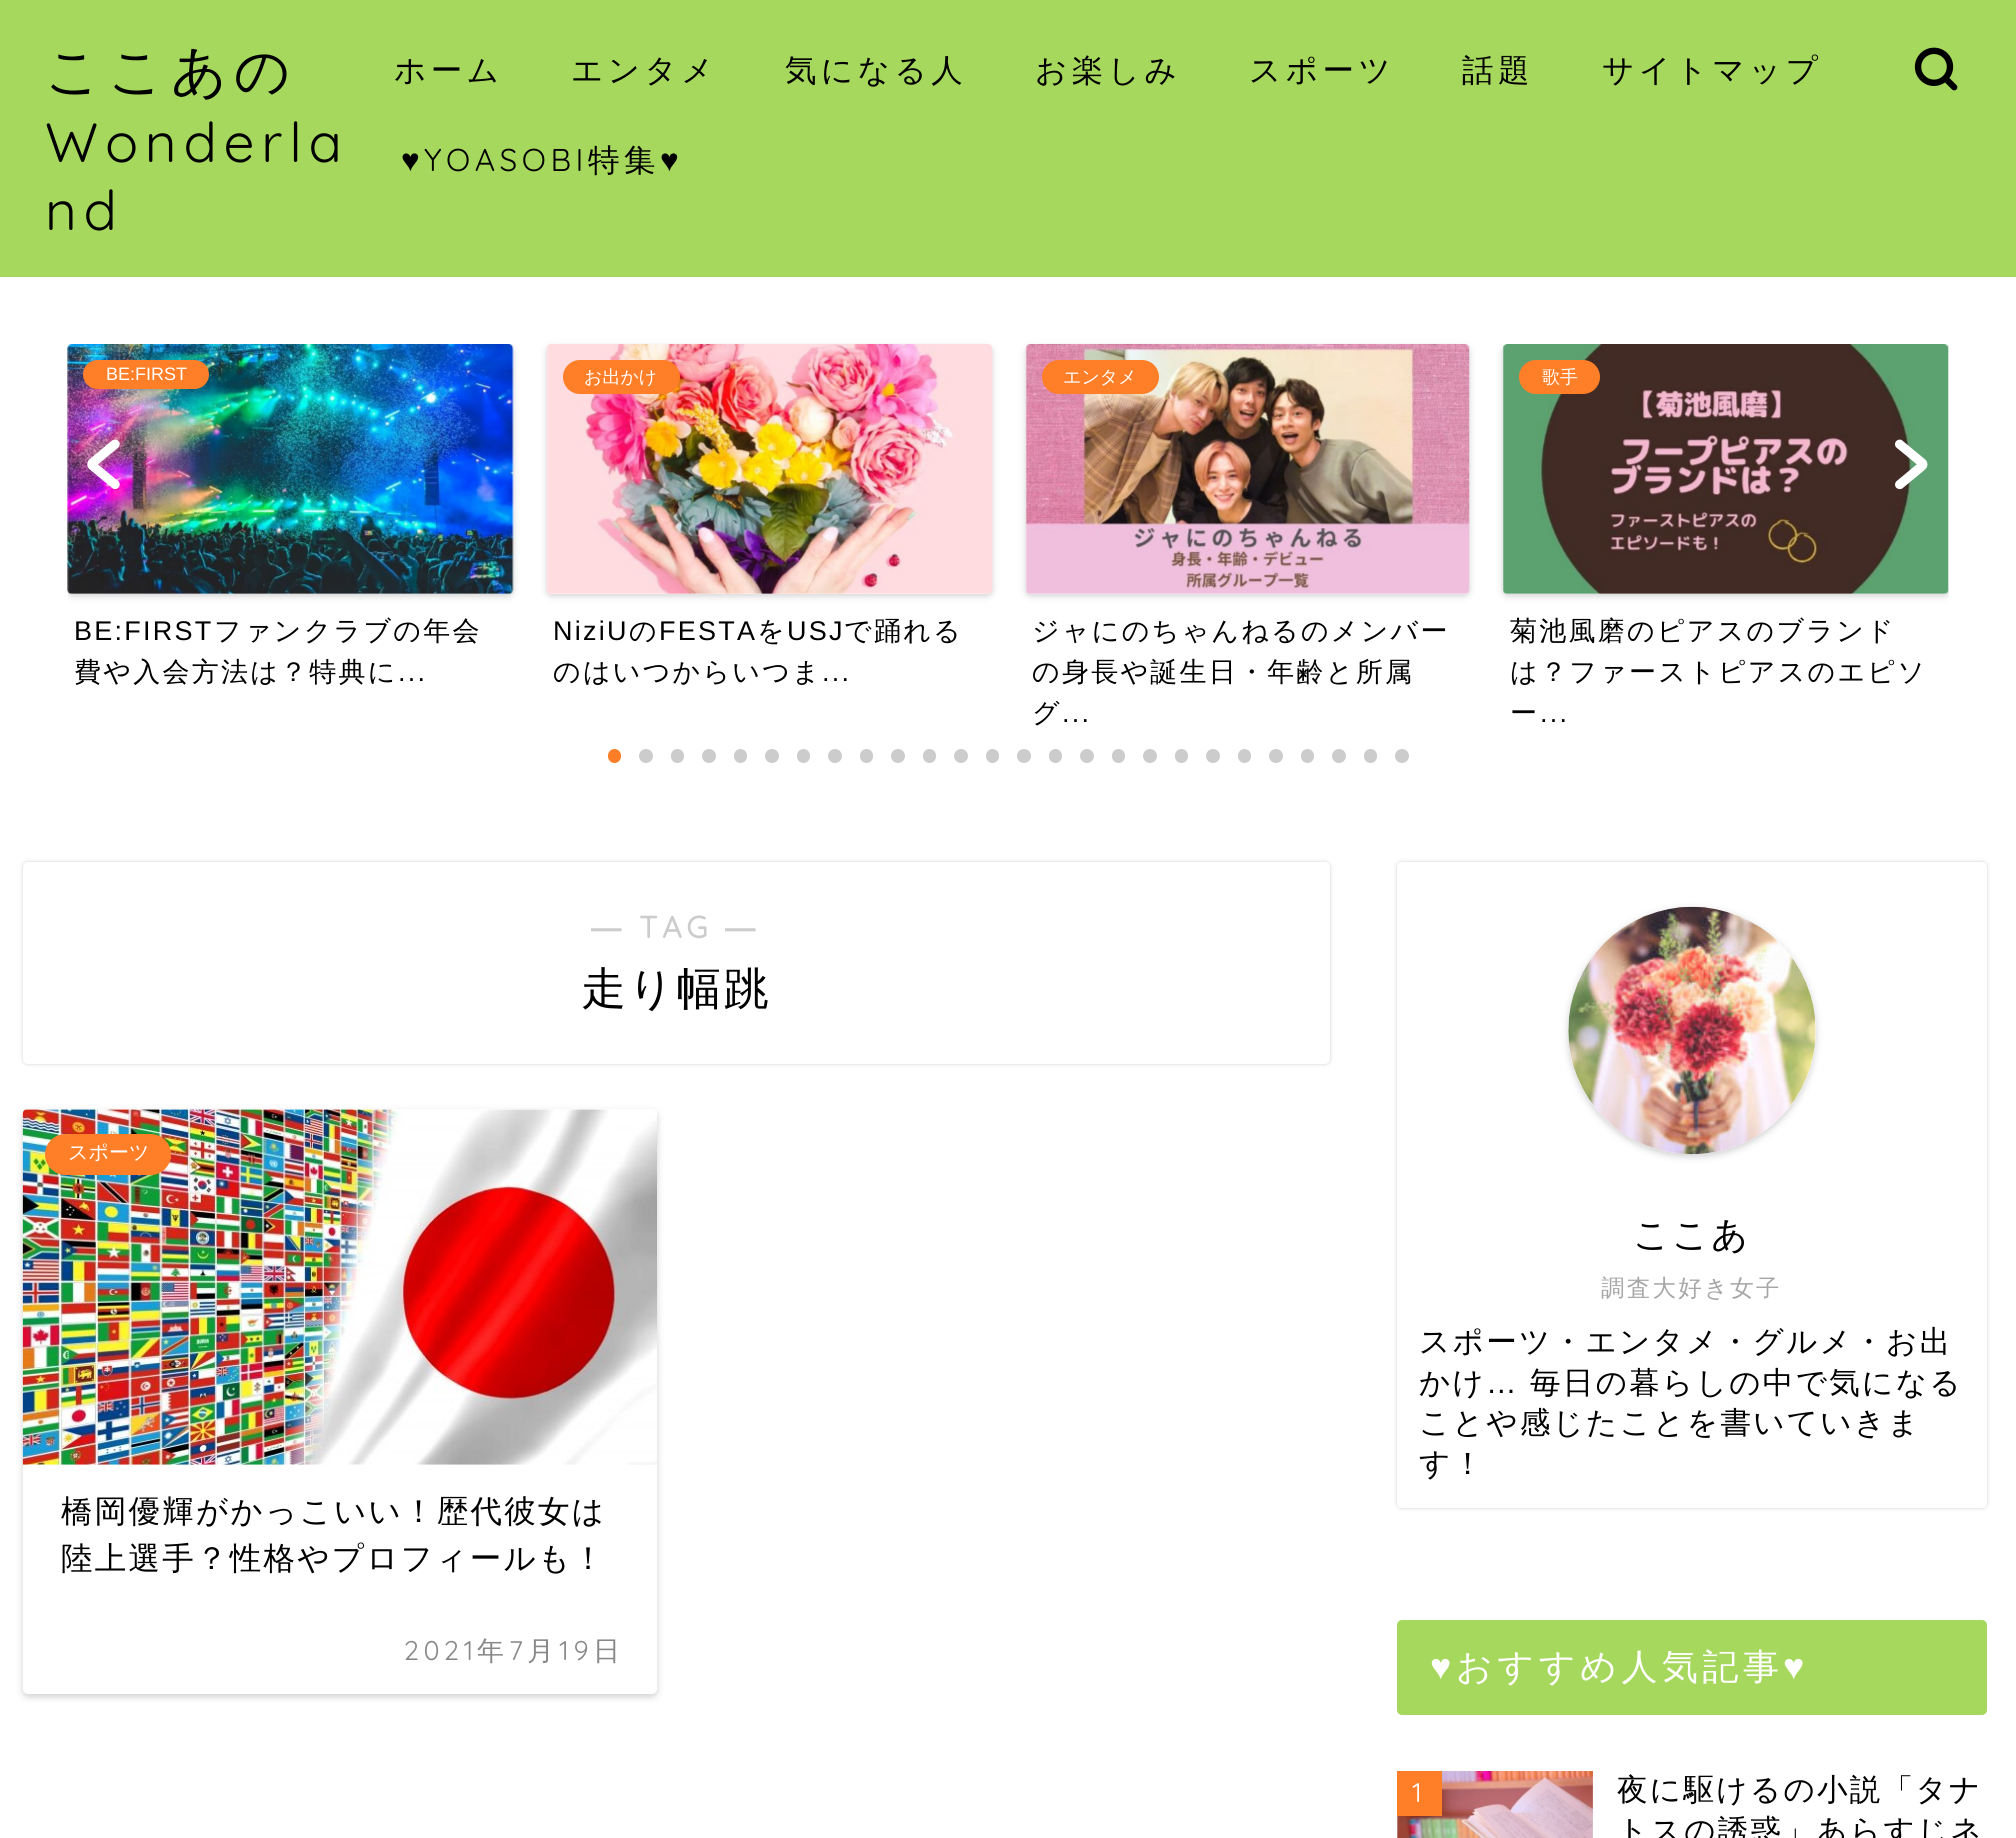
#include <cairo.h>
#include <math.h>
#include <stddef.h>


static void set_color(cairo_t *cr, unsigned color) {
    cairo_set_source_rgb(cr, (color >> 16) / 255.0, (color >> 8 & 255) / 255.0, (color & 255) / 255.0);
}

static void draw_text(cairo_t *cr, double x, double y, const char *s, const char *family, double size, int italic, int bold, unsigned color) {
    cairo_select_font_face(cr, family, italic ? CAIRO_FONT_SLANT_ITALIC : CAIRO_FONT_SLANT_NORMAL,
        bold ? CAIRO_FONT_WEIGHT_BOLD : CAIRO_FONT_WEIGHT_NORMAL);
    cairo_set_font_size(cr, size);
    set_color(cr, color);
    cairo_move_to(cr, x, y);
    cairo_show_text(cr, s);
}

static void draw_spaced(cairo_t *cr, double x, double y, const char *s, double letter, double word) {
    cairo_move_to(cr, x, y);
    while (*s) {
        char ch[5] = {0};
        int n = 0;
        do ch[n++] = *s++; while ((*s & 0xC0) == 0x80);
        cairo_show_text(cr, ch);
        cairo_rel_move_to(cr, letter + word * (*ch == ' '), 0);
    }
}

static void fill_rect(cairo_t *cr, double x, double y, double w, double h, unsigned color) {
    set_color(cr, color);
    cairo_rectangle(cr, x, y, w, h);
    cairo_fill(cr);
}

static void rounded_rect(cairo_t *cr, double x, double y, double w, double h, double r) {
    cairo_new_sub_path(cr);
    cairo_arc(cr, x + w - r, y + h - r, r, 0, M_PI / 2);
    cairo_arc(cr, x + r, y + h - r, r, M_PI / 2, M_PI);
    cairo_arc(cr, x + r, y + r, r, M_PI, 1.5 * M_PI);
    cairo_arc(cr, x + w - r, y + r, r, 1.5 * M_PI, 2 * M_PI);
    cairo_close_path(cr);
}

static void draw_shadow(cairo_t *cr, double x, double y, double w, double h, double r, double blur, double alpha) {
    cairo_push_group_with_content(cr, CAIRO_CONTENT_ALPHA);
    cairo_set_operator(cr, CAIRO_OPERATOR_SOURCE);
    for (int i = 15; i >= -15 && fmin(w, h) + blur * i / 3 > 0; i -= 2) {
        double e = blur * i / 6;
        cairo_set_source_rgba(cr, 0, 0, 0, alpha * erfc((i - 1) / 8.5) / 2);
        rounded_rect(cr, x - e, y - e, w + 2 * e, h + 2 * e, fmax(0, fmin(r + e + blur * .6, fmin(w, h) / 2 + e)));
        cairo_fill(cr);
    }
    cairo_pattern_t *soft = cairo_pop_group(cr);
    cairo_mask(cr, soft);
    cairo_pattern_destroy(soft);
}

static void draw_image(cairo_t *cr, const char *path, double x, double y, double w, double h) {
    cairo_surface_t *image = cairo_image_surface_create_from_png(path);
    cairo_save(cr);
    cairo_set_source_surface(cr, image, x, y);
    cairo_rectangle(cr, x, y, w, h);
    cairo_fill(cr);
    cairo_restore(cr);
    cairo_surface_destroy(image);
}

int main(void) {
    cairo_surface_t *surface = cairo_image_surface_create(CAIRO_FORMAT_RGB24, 2016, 1838);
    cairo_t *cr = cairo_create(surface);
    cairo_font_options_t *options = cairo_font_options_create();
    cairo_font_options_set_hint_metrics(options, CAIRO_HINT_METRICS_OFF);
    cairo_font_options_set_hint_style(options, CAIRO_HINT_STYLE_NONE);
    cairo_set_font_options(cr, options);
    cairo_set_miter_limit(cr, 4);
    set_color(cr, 0xFFFFFF);
    cairo_paint(cr);
    fill_rect(cr, 0, 0, 2016, 277, 0xA5D85D);
    cairo_select_font_face(cr, "WenQuanYi Zen Hei Medium", CAIRO_FONT_SLANT_NORMAL, CAIRO_FONT_WEIGHT_NORMAL);
    cairo_set_font_size(cr, 55);
    set_color(cr, 0x000000);
    draw_spaced(cr, 45, 90, "ここあの", 6.75, 0);
    cairo_select_font_face(cr, "Quicksand Light", CAIRO_FONT_SLANT_NORMAL, CAIRO_FONT_WEIGHT_NORMAL);
    draw_spaced(cr, 45, 162, "Wonderla", 6.75, 0);
    draw_spaced(cr, 45, 230, "nd", 6.75, 0);
    cairo_select_font_face(cr, "WenQuanYi Zen Hei Medium", CAIRO_FONT_SLANT_NORMAL, CAIRO_FONT_WEIGHT_NORMAL);
    cairo_set_font_size(cr, 31.5);
    draw_spaced(cr, 394, 81, "ホーム", 4.5, 0);
    draw_spaced(cr, 571, 81, "エンタメ", 4.5, 0);
    draw_spaced(cr, 785, 81, "気になる人", 4.5, 0);
    draw_spaced(cr, 1035, 81, "お楽しみ", 4.5, 0);
    draw_spaced(cr, 1249, 81, "スポーツ", 4.5, 0);
    draw_spaced(cr, 1462, 81, "話題", 4.5, 0);
    draw_spaced(cr, 1602, 81, "サイトマップ", 4.5, 0);
    cairo_select_font_face(cr, "Liberation Sans", CAIRO_FONT_SLANT_NORMAL, CAIRO_FONT_WEIGHT_NORMAL);
    draw_spaced(cr, 401, 171, "♥", 4.5, 0);
    cairo_select_font_face(cr, "Quicksand Light", CAIRO_FONT_SLANT_NORMAL, CAIRO_FONT_WEIGHT_NORMAL);
    draw_spaced(cr, 424, 171, "YOASOBI", 4.5, 0);
    cairo_select_font_face(cr, "WenQuanYi Zen Hei Medium", CAIRO_FONT_SLANT_NORMAL, CAIRO_FONT_WEIGHT_NORMAL);
    draw_spaced(cr, 588, 171, "特集", 4.5, 0);
    cairo_select_font_face(cr, "Liberation Sans", CAIRO_FONT_SLANT_NORMAL, CAIRO_FONT_WEIGHT_NORMAL);
    draw_spaced(cr, 660, 171, "♥", 4.5, 0);
    draw_image(cr, "assets/img1.png", 1914, 47, 44, 44);
    cairo_save(cr);
    cairo_rectangle(cr, 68, 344, 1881, 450);
    cairo_clip(cr);
    set_color(cr, 0x000000);
    draw_shadow(cr, 68, 347, 445, 249, 5, 3.5, 0.18);
    cairo_restore(cr);
    set_color(cr, 0xFFFFFF);
    rounded_rect(cr, 68, 344, 445, 250, 5);
    cairo_fill(cr);
    draw_image(cr, "assets/img2.png", 67, 344, 447, 250);
    set_color(cr, 0xFF7E28);
    rounded_rect(cr, 83, 360, 126, 29, 14.5);
    cairo_fill(cr);
    draw_text(cr, 106, 380, "BE:FIRST", "Liberation Sans", 18, 0, 0, 0xFFFFFF);
    cairo_set_font_size(cr, 27);
    set_color(cr, 0x000000);
    draw_spaced(cr, 74, 640, "BE:FIRST", 2.25, 0);
    cairo_select_font_face(cr, "WenQuanYi Zen Hei Medium", CAIRO_FONT_SLANT_NORMAL, CAIRO_FONT_WEIGHT_NORMAL);
    draw_spaced(cr, 214, 640, "ファンクラブの年会", 2.25, 0);
    draw_spaced(cr, 74, 681, "費や入会方法は？特典に", 2.25, 0);
    cairo_select_font_face(cr, "Liberation Sans", CAIRO_FONT_SLANT_NORMAL, CAIRO_FONT_WEIGHT_NORMAL);
    draw_spaced(cr, 398, 681, "...", 2.25, 0);
    set_color(cr, 0x000000);
    draw_shadow(cr, 547, 347, 445, 249, 5, 3.5, 0.18);
    set_color(cr, 0xFFFFFF);
    rounded_rect(cr, 547, 344, 445, 250, 5);
    cairo_fill(cr);
    draw_image(cr, "assets/img3.png", 546, 344, 447, 250);
    set_color(cr, 0xFF7E28);
    rounded_rect(cr, 563, 360, 117, 34, 17);
    cairo_fill(cr);
    draw_text(cr, 584, 383, "お出かけ", "WenQuanYi Zen Hei Medium", 18, 0, 0, 0xFFFFFF);
    cairo_select_font_face(cr, "Liberation Sans", CAIRO_FONT_SLANT_NORMAL, CAIRO_FONT_WEIGHT_NORMAL);
    cairo_set_font_size(cr, 27);
    set_color(cr, 0x000000);
    draw_spaced(cr, 553, 640, "NiziU", 2.25, 0);
    cairo_select_font_face(cr, "WenQuanYi Zen Hei Medium", CAIRO_FONT_SLANT_NORMAL, CAIRO_FONT_WEIGHT_NORMAL);
    draw_spaced(cr, 629, 640, "の", 2.25, 0);
    cairo_select_font_face(cr, "Liberation Sans", CAIRO_FONT_SLANT_NORMAL, CAIRO_FONT_WEIGHT_NORMAL);
    draw_spaced(cr, 659, 640, "FESTA", 2.25, 0);
    cairo_select_font_face(cr, "WenQuanYi Zen Hei Medium", CAIRO_FONT_SLANT_NORMAL, CAIRO_FONT_WEIGHT_NORMAL);
    draw_spaced(cr, 757, 640, "を", 2.25, 0);
    cairo_select_font_face(cr, "Liberation Sans", CAIRO_FONT_SLANT_NORMAL, CAIRO_FONT_WEIGHT_NORMAL);
    draw_spaced(cr, 787, 640, "USJ", 2.25, 0);
    cairo_select_font_face(cr, "WenQuanYi Zen Hei Medium", CAIRO_FONT_SLANT_NORMAL, CAIRO_FONT_WEIGHT_NORMAL);
    draw_spaced(cr, 844, 640, "で踊れる", 2.25, 0);
    draw_spaced(cr, 553, 681, "のはいつからいつま", 2.25, 0);
    cairo_select_font_face(cr, "Liberation Sans", CAIRO_FONT_SLANT_NORMAL, CAIRO_FONT_WEIGHT_NORMAL);
    draw_spaced(cr, 822, 681, "...", 2.25, 0);
    set_color(cr, 0x000000);
    draw_shadow(cr, 1026, 347, 443, 249, 5, 3.5, 0.18);
    set_color(cr, 0xFFFFFF);
    rounded_rect(cr, 1026, 344, 443, 250, 5);
    cairo_fill(cr);
    draw_image(cr, "assets/img4.png", 1025, 344, 445, 250);
    set_color(cr, 0xFF7E28);
    rounded_rect(cr, 1042, 360, 117, 34, 17);
    cairo_fill(cr);
    draw_text(cr, 1063, 383, "エンタメ", "WenQuanYi Zen Hei Medium", 18, 0, 0, 0xFFFFFF);
    cairo_set_font_size(cr, 27);
    set_color(cr, 0x000000);
    draw_spaced(cr, 1032, 640, "ジャにのちゃんねるのメンバー", 2.25, 0);
    draw_spaced(cr, 1032, 681, "の身長や誕生日・年齢と所属", 2.25, 0);
    draw_spaced(cr, 1032, 722, "グ", 2.25, 0);
    cairo_select_font_face(cr, "Liberation Sans", CAIRO_FONT_SLANT_NORMAL, CAIRO_FONT_WEIGHT_NORMAL);
    draw_spaced(cr, 1062, 722, "...", 2.25, 0);
    cairo_save(cr);
    cairo_rectangle(cr, 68, 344, 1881, 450);
    cairo_clip(cr);
    set_color(cr, 0x000000);
    draw_shadow(cr, 1503, 347, 446, 249, 5, 3.5, 0.18);
    cairo_restore(cr);
    set_color(cr, 0xFFFFFF);
    rounded_rect(cr, 1503, 344, 446, 250, 5);
    cairo_fill(cr);
    draw_image(cr, "assets/img5.png", 1502, 344, 447, 250);
    set_color(cr, 0xFF7E28);
    rounded_rect(cr, 1519, 360, 81, 34, 17);
    cairo_fill(cr);
    draw_text(cr, 1542, 383, "歌手", "WenQuanYi Zen Hei Medium", 18, 0, 0, 0xFFFFFF);
    cairo_set_font_size(cr, 27);
    set_color(cr, 0x000000);
    draw_spaced(cr, 1510, 640, "菊池風磨のピアスのブランド", 2.25, 0);
    draw_spaced(cr, 1510, 681, "は？ファーストピアスのエピソ", 2.25, 0);
    draw_spaced(cr, 1510, 722, "ー", 2.25, 0);
    cairo_select_font_face(cr, "Liberation Sans", CAIRO_FONT_SLANT_NORMAL, CAIRO_FONT_WEIGHT_NORMAL);
    draw_spaced(cr, 1540, 722, "...", 2.25, 0);
    draw_image(cr, "assets/img6.png", 87, 439, 33, 51);
    draw_image(cr, "assets/img7.png", 1895, 439, 33, 51);
    set_color(cr, 0xFF7E28);
    rounded_rect(cr, 608, 749, 13, 14, 6.5);
    cairo_fill(cr);
    set_color(cr, 0xCCCCCC);
    cairo_arc(cr, 646, 756, 7, 0, 2 * M_PI);
    cairo_fill(cr);
    rounded_rect(cr, 671, 749, 13, 14, 6.5);
    cairo_fill(cr);
    cairo_arc(cr, 709, 756, 7, 0, 2 * M_PI);
    cairo_fill(cr);
    rounded_rect(cr, 734, 749, 13, 14, 6.5);
    cairo_fill(cr);
    cairo_arc(cr, 772, 756, 7, 0, 2 * M_PI);
    cairo_fill(cr);
    rounded_rect(cr, 797, 749, 13, 14, 6.5);
    cairo_fill(cr);
    cairo_arc(cr, 835, 756, 7, 0, 2 * M_PI);
    cairo_fill(cr);
    rounded_rect(cr, 860, 749, 13, 14, 6.5);
    cairo_fill(cr);
    cairo_arc(cr, 898, 756, 7, 0, 2 * M_PI);
    cairo_fill(cr);
    rounded_rect(cr, 923, 749, 13, 14, 6.5);
    cairo_fill(cr);
    cairo_arc(cr, 961, 756, 7, 0, 2 * M_PI);
    cairo_fill(cr);
    rounded_rect(cr, 986, 749, 13, 14, 6.5);
    cairo_fill(cr);
    cairo_arc(cr, 1024, 756, 7, 0, 2 * M_PI);
    cairo_fill(cr);
    rounded_rect(cr, 1049, 749, 13, 14, 6.5);
    cairo_fill(cr);
    cairo_arc(cr, 1087, 756, 7, 0, 2 * M_PI);
    cairo_fill(cr);
    rounded_rect(cr, 1112, 749, 13, 14, 6.5);
    cairo_fill(cr);
    cairo_arc(cr, 1150, 756, 7, 0, 2 * M_PI);
    cairo_fill(cr);
    rounded_rect(cr, 1175, 749, 13, 14, 6.5);
    cairo_fill(cr);
    cairo_arc(cr, 1213, 756, 7, 0, 2 * M_PI);
    cairo_fill(cr);
    rounded_rect(cr, 1238, 749, 13, 14, 6.5);
    cairo_fill(cr);
    cairo_arc(cr, 1276, 756, 7, 0, 2 * M_PI);
    cairo_fill(cr);
    rounded_rect(cr, 1301, 749, 13, 14, 6.5);
    cairo_fill(cr);
    cairo_arc(cr, 1339, 756, 7, 0, 2 * M_PI);
    cairo_fill(cr);
    rounded_rect(cr, 1364, 749, 13, 14, 6.5);
    cairo_fill(cr);
    cairo_arc(cr, 1402, 756, 7, 0, 2 * M_PI);
    cairo_fill(cr);
    set_color(cr, 0x000000);
    draw_shadow(cr, 23, 862, 1307, 202, 5, 2, 0.18);
    set_color(cr, 0xFFFFFF);
    rounded_rect(cr, 23, 862, 1307, 202, 5);
    cairo_fill(cr);
    cairo_select_font_face(cr, "Liberation Sans", CAIRO_FONT_SLANT_NORMAL, CAIRO_FONT_WEIGHT_BOLD);
    cairo_set_font_size(cr, 30.6);
    set_color(cr, 0xCCCCCC);
    draw_spaced(cr, 591, 938, "―", 4.5, 0);
    cairo_select_font_face(cr, "Quicksand", CAIRO_FONT_SLANT_NORMAL, CAIRO_FONT_WEIGHT_BOLD);
    draw_spaced(cr, 639, 938, "TAG", 4.5, 0);
    cairo_select_font_face(cr, "Liberation Sans", CAIRO_FONT_SLANT_NORMAL, CAIRO_FONT_WEIGHT_BOLD);
    draw_spaced(cr, 725, 938, "―", 4.5, 0);
    cairo_select_font_face(cr, "WenQuanYi Zen Hei Medium", CAIRO_FONT_SLANT_NORMAL, CAIRO_FONT_WEIGHT_NORMAL);
    cairo_set_font_size(cr, 45);
    set_color(cr, 0x000000);
    draw_spaced(cr, 581, 1004, "走り幅跳", 2.25, 0);
    set_color(cr, 0x000000);
    draw_shadow(cr, 23, 1112, 634, 585, 5, 3.5, 0.18);
    set_color(cr, 0xFFFFFF);
    rounded_rect(cr, 23, 1109, 634, 585, 5);
    cairo_fill(cr);
    draw_image(cr, "assets/img8.png", 22, 1109, 635, 356);
    set_color(cr, 0xFF7E28);
    rounded_rect(cr, 45, 1134, 126, 41, 20.5);
    cairo_fill(cr);
    draw_text(cr, 68, 1159, "スポーツ", "WenQuanYi Zen Hei Medium", 20, 0, 0, 0xFFFFFF);
    cairo_set_font_size(cr, 31.5);
    set_color(cr, 0x000000);
    draw_spaced(cr, 61, 1522, "橋岡優輝がかっこいい！歴代彼女は", 2.25, 0);
    draw_spaced(cr, 61, 1569, "陸上選手？性格やプロフィールも！", 2.25, 0);
    cairo_select_font_face(cr, "Quicksand Light", CAIRO_FONT_SLANT_NORMAL, CAIRO_FONT_WEIGHT_NORMAL);
    cairo_set_font_size(cr, 27);
    set_color(cr, 0x888888);
    draw_spaced(cr, 404, 1660, "2021", 4.5, 0);
    cairo_select_font_face(cr, "WenQuanYi Zen Hei Medium", CAIRO_FONT_SLANT_NORMAL, CAIRO_FONT_WEIGHT_NORMAL);
    draw_spaced(cr, 477, 1660, "年", 4.5, 0);
    cairo_select_font_face(cr, "Quicksand Light", CAIRO_FONT_SLANT_NORMAL, CAIRO_FONT_WEIGHT_NORMAL);
    draw_spaced(cr, 509, 1660, "7", 4.5, 0);
    cairo_select_font_face(cr, "WenQuanYi Zen Hei Medium", CAIRO_FONT_SLANT_NORMAL, CAIRO_FONT_WEIGHT_NORMAL);
    draw_spaced(cr, 527, 1660, "月", 4.5, 0);
    cairo_select_font_face(cr, "Quicksand Light", CAIRO_FONT_SLANT_NORMAL, CAIRO_FONT_WEIGHT_NORMAL);
    draw_spaced(cr, 559, 1660, "19", 4.5, 0);
    cairo_select_font_face(cr, "WenQuanYi Zen Hei Medium", CAIRO_FONT_SLANT_NORMAL, CAIRO_FONT_WEIGHT_NORMAL);
    draw_spaced(cr, 593, 1660, "日", 4.5, 0);
    set_color(cr, 0x000000);
    draw_shadow(cr, 1397, 862, 590, 646, 5, 2, 0.18);
    set_color(cr, 0xFFFFFF);
    rounded_rect(cr, 1397, 862, 590, 646, 5);
    cairo_fill(cr);
    set_color(cr, 0x000000);
    draw_shadow(cr, 1568, 909, 248, 248, 124, 3.5, 0.18);
    set_color(cr, 0xFFFFFF);
    rounded_rect(cr, 1568, 907, 248, 247, 123.5);
    cairo_fill(cr);
    draw_image(cr, "assets/img9.png", 1568, 906, 248, 249);
    cairo_set_font_size(cr, 36);
    set_color(cr, 0x000000);
    draw_spaced(cr, 1633, 1247, "ここあ", 2.25, 0);
    cairo_set_font_size(cr, 23.5);
    set_color(cr, 0xA6A6A6);
    draw_spaced(cr, 1601, 1296, "調査大好き女子", 2.25, 0);
    cairo_set_font_size(cr, 30.6);
    set_color(cr, 0x000000);
    draw_spaced(cr, 1419, 1352, "スポーツ・エンタメ・グルメ・お出", 2.25, 0);
    draw_spaced(cr, 1419, 1393, "かけ", 2.25, 0);
    cairo_select_font_face(cr, "Liberation Sans", CAIRO_FONT_SLANT_NORMAL, CAIRO_FONT_WEIGHT_NORMAL);
    draw_spaced(cr, 1486, 1393, "…", 2.25, 0);
    cairo_select_font_face(cr, "WenQuanYi Zen Hei Medium", CAIRO_FONT_SLANT_NORMAL, CAIRO_FONT_WEIGHT_NORMAL);
    draw_spaced(cr, 1530, 1393, "毎日の暮らしの中で気になる", 2.25, 0);
    draw_spaced(cr, 1419, 1433, "ことや感じたことを書いていきま", 2.25, 0);
    draw_spaced(cr, 1419, 1474, "す！", 2.25, 0);
    set_color(cr, 0xA5D85D);
    rounded_rect(cr, 1397, 1620, 590, 95, 5);
    cairo_fill(cr);
    cairo_select_font_face(cr, "Liberation Sans", CAIRO_FONT_SLANT_NORMAL, CAIRO_FONT_WEIGHT_NORMAL);
    cairo_set_font_size(cr, 36);
    set_color(cr, 0xFFFFFF);
    draw_spaced(cr, 1430, 1679, "♥", 4.5, 0);
    cairo_select_font_face(cr, "WenQuanYi Zen Hei Medium", CAIRO_FONT_SLANT_NORMAL, CAIRO_FONT_WEIGHT_NORMAL);
    draw_spaced(cr, 1456, 1679, "おすすめ人気記事", 4.5, 0);
    cairo_select_font_face(cr, "Liberation Sans", CAIRO_FONT_SLANT_NORMAL, CAIRO_FONT_WEIGHT_NORMAL);
    draw_spaced(cr, 1783, 1679, "♥", 4.5, 0);
    draw_image(cr, "assets/img10.png", 1397, 1771, 196, 67);
    fill_rect(cr, 1397, 1771, 45, 45, 0xFF7E28);
    cairo_select_font_face(cr, "Quicksand Light", CAIRO_FONT_SLANT_NORMAL, CAIRO_FONT_WEIGHT_NORMAL);
    cairo_set_font_size(cr, 27);
    set_color(cr, 0xFFFFFF);
    draw_spaced(cr, 1412, 1802, "1", 4.5, 0);
    cairo_select_font_face(cr, "WenQuanYi Zen Hei Medium", CAIRO_FONT_SLANT_NORMAL, CAIRO_FONT_WEIGHT_NORMAL);
    cairo_set_font_size(cr, 30.6);
    set_color(cr, 0x000000);
    draw_spaced(cr, 1617, 1800, "夜に駆けるの小説「タナ", 2.25, 0);
    draw_spaced(cr, 1617, 1841, "トスの誘惑」あらすじネ", 2.25, 0);
    cairo_surface_write_to_png(surface, "output.png");
    cairo_font_options_destroy(options);
    cairo_destroy(cr);
    cairo_surface_destroy(surface);
    return 0;
}
